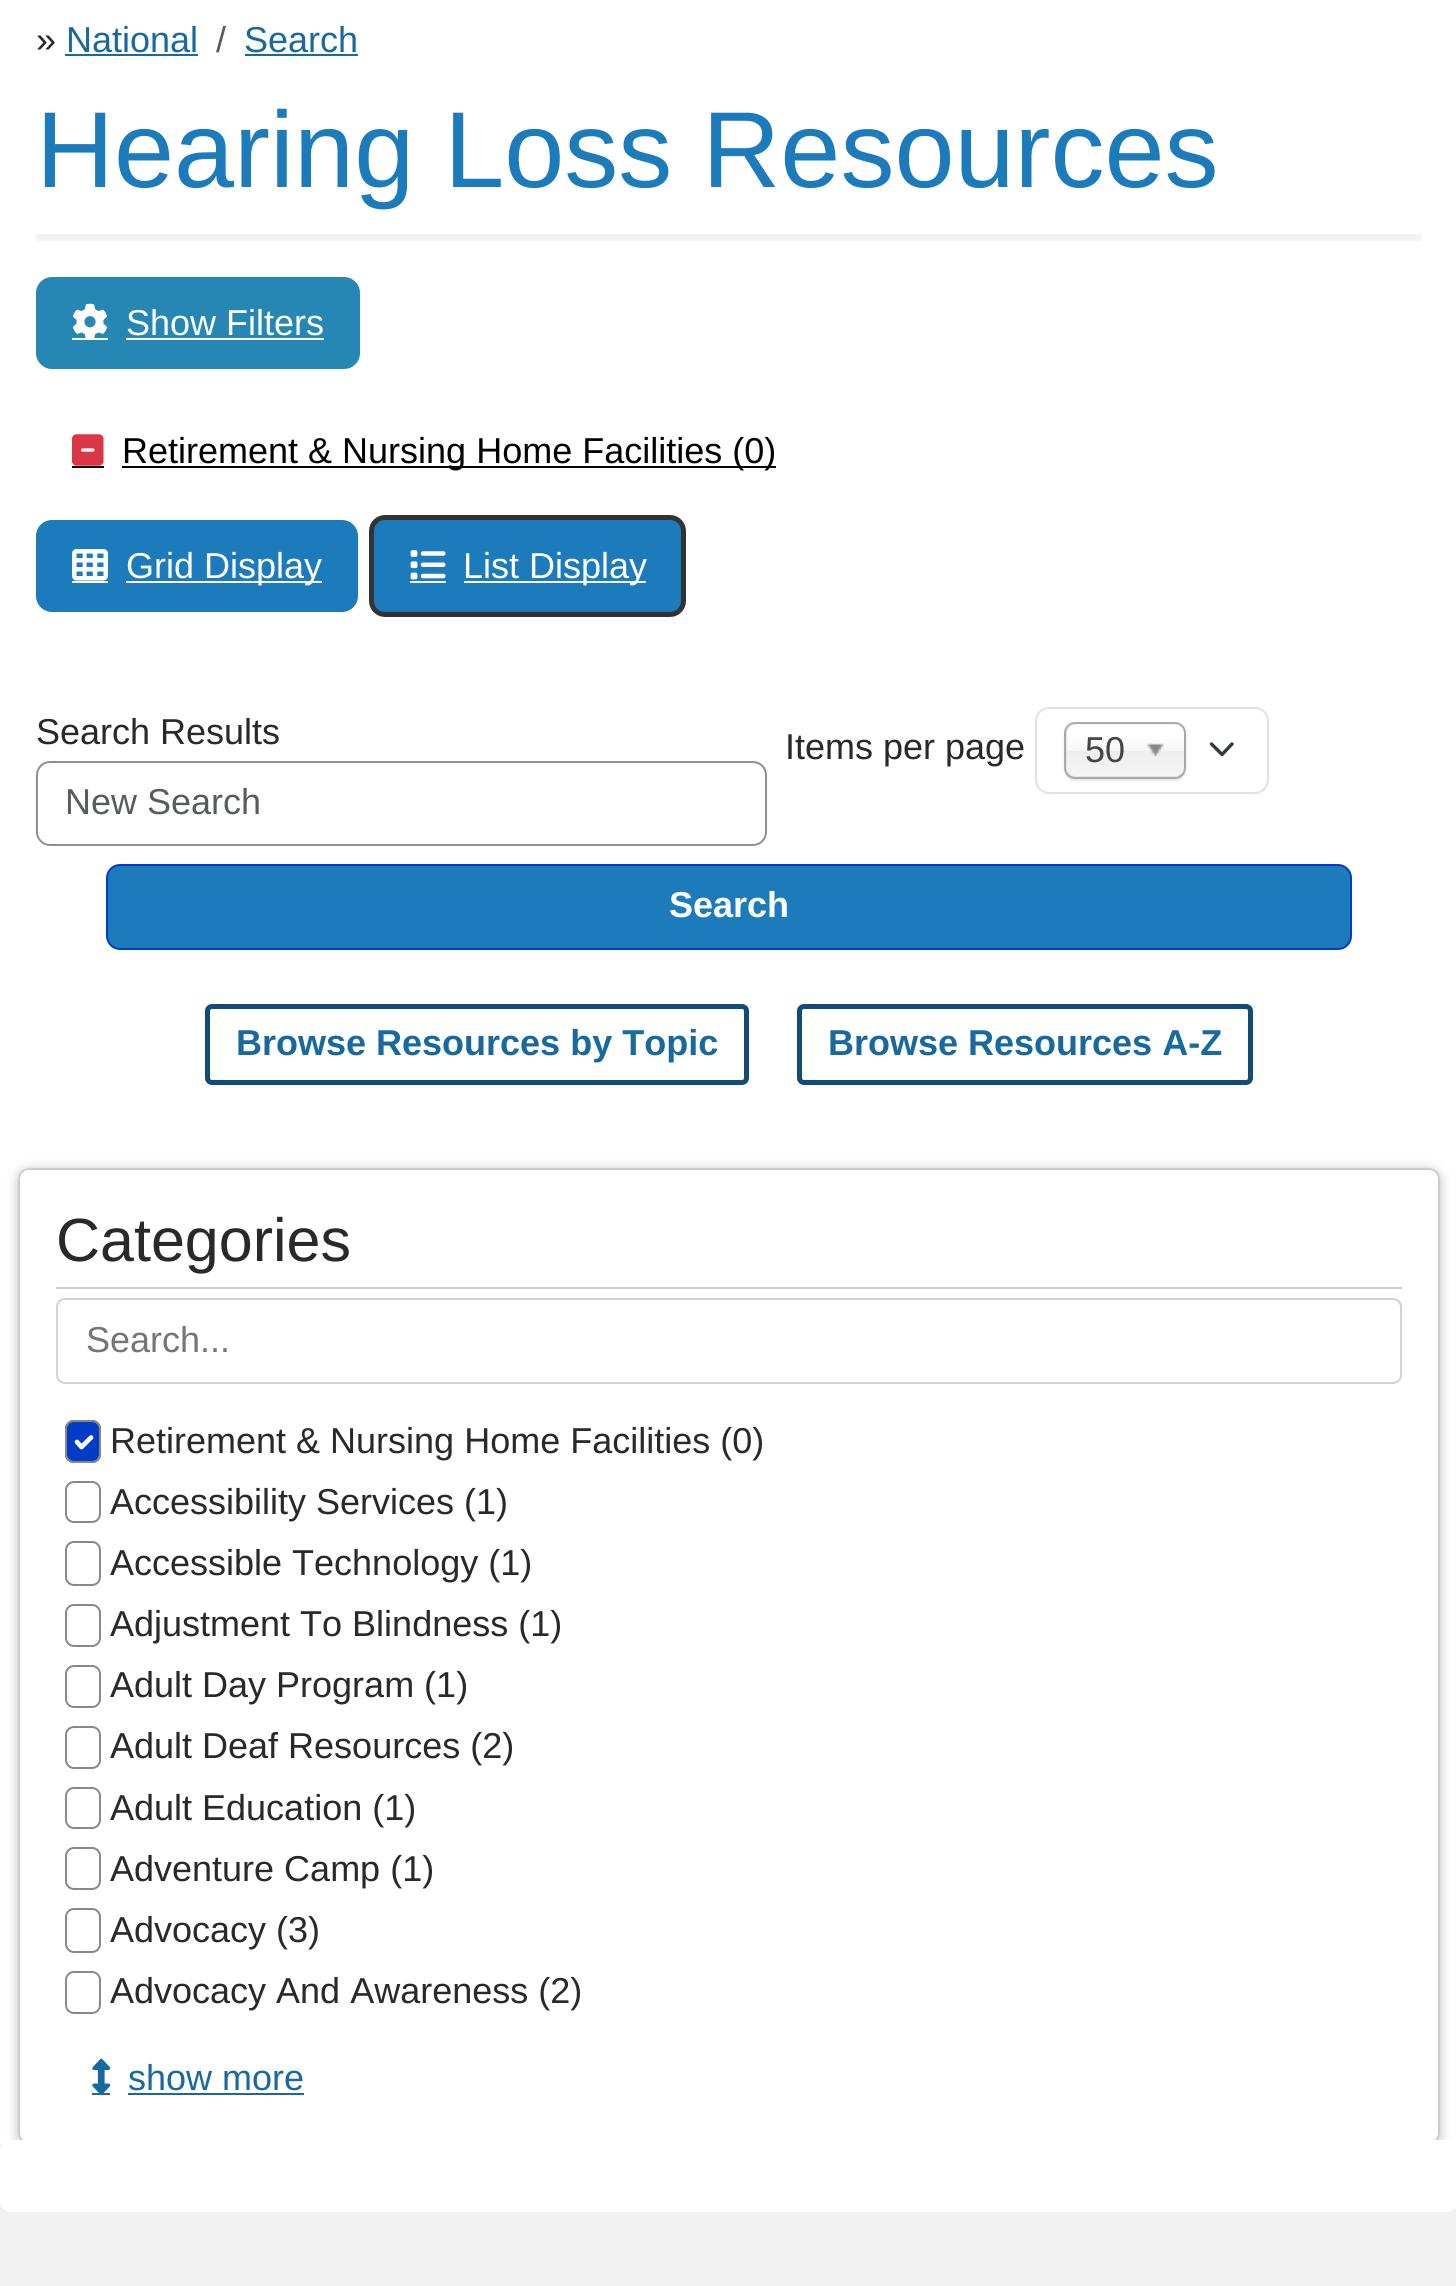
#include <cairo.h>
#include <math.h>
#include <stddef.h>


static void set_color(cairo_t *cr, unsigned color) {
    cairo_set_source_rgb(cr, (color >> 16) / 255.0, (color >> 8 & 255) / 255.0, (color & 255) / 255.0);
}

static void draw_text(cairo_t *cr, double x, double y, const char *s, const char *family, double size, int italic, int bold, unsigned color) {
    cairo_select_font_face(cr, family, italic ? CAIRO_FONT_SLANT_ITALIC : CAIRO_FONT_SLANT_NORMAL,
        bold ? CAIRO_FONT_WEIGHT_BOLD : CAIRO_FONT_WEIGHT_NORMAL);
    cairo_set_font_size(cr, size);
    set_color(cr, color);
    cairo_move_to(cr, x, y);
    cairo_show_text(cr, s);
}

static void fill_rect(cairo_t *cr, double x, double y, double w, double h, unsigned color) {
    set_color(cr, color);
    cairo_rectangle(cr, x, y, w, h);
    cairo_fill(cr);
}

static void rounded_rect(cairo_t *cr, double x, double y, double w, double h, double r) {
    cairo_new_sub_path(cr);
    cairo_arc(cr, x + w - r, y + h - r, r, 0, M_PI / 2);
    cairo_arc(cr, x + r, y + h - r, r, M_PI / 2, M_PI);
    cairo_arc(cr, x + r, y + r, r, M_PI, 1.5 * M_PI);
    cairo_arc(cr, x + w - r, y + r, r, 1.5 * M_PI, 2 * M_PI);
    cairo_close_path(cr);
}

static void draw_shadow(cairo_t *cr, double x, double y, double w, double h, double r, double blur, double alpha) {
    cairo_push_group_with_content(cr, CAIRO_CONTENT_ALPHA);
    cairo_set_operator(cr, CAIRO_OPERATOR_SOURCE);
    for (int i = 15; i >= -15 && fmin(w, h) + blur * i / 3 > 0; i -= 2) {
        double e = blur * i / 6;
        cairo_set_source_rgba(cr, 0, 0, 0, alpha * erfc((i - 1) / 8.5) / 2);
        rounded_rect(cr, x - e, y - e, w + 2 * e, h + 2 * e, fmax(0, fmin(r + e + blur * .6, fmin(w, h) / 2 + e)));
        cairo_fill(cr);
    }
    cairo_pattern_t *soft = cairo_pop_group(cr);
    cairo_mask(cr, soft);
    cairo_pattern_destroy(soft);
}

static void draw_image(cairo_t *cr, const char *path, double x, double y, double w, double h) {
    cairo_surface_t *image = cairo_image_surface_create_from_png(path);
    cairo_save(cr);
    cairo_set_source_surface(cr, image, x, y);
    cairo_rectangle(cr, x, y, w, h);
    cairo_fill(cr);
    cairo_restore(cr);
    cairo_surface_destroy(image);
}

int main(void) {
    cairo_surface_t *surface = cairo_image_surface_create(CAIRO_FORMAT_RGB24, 1456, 2286);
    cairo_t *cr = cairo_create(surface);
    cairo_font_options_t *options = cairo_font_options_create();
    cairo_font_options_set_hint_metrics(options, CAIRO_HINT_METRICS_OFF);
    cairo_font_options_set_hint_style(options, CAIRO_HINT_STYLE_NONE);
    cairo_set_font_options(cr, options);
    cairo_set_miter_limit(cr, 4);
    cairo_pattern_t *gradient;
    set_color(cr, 0xF2F2F2);
    cairo_paint(cr);
    fill_rect(cr, 0, 0, 1456, 2144, 0xFFFFFF);
    draw_text(cr, 36, 52, "»", "Liberation Sans", 36, 0, 0, 0x292929);
    draw_text(cr, 66, 52, "National", "Liberation Sans", 36, 0, 0, 0x1869A0);
    fill_rect(cr, 65, 54, 133, 2, 0x1869A0);
    draw_text(cr, 216, 52, "/", "Liberation Sans", 36, 0, 0, 0x595C5F);
    draw_text(cr, 244, 52, "Search", "Liberation Sans", 36, 0, 0, 0x1869A0);
    fill_rect(cr, 245, 54, 113, 2, 0x1869A0);
    fill_rect(cr, 36, 234, 1386, 7, 0xF3F3F3);
    draw_text(cr, 36, 187, "Hearing Loss Resources", "Liberation Sans", 108, 0, 0, 0x1C7BBA);
    set_color(cr, 0x2687B4);
    rounded_rect(cr, 36, 277, 324, 92, 16);
    cairo_fill(cr);
    draw_image(cr, "assets/img1.png", 73, 303, 34, 35);
    draw_text(cr, 126, 335, "Show Filters", "Liberation Sans", 36, 0, 0, 0xFFFFFF);
    fill_rect(cr, 126, 338, 198, 2, 0xFFFFFF);
    fill_rect(cr, 72, 338, 36, 2, 0xFFFFFF);
    draw_image(cr, "assets/img2.png", 72, 434, 32, 32);
    fill_rect(cr, 122, 466, 654, 2, 0x000000);
    draw_text(cr, 122, 463, "Retirement & Nursing Home Facilities (0)", "Liberation Sans", 36, 0, 0, 0x000000);
    fill_rect(cr, 72, 466, 32, 2, 0x000000);
    set_color(cr, 0x1C7BBA);
    rounded_rect(cr, 36, 520, 322, 92, 16);
    cairo_fill(cr);
    draw_image(cr, "assets/img3.png", 72, 549, 36, 32);
    fill_rect(cr, 126, 581, 196, 2, 0xFFFFFF);
    draw_text(cr, 126, 578, "Grid Display", "Liberation Sans", 36, 0, 0, 0xFFFFFF);
    fill_rect(cr, 72, 581, 36, 2, 0xFFFFFF);
    set_color(cr, 0x1C7BBA);
    rounded_rect(cr, 371.5, 517.5, 312, 97, 13.5);
    cairo_fill_preserve(cr);
    set_color(cr, 0x333333);
    cairo_set_line_width(cr, 5);
    cairo_stroke(cr);
    draw_image(cr, "assets/img4.png", 410, 550, 36, 30);
    fill_rect(cr, 464, 581, 182, 2, 0xFFFFFF);
    draw_text(cr, 463, 578, "List Display", "Liberation Sans", 36, 0, 0, 0xFFFFFF);
    fill_rect(cr, 410, 581, 36, 2, 0xFFFFFF);
    draw_text(cr, 36, 744, "Search Results", "Liberation Sans", 36, 0, 0, 0x292929);
    rounded_rect(cr, 37, 762, 729, 83, 13);
    set_color(cr, 0x909090);
    cairo_set_line_width(cr, 2);
    cairo_stroke(cr);
    draw_text(cr, 65, 814, "New Search", "Liberation Sans", 36, 0, 0, 0x595C5F);
    draw_text(cr, 785, 759, "Items per page", "Liberation Sans", 36, 0, 0, 0x292929);
    cairo_new_path(cr);
    cairo_move_to(cr, 1211.5, 744);
    cairo_line_to(cr, 1222, 754.5);
    cairo_line_to(cr, 1232, 744);
    set_color(cr, 0x343A40);
    cairo_set_line_width(cr, 3.4);
    cairo_set_line_cap(cr, CAIRO_LINE_CAP_ROUND);
    cairo_set_line_join(cr, CAIRO_LINE_JOIN_ROUND);
    cairo_stroke(cr);
    rounded_rect(cr, 1036, 708, 232, 85, 13);
    set_color(cr, 0xDEE2E6);
    cairo_set_line_width(cr, 2);
    cairo_set_line_cap(cr, CAIRO_LINE_CAP_BUTT);
    cairo_set_line_join(cr, CAIRO_LINE_JOIN_MITER);
    cairo_stroke(cr);
    set_color(cr, 0x000000);
    draw_shadow(cr, 1064, 725, 122, 56, 11, 1, 0.1);
    gradient = cairo_pattern_create_linear(1125, 725, 1125, 776);
    cairo_pattern_add_color_stop_rgba(gradient, 0.2, 1, 1, 1, 1);
    cairo_pattern_add_color_stop_rgba(gradient, 0.5, 0.965, 0.965, 0.965, 1);
    cairo_pattern_add_color_stop_rgba(gradient, 0.52, 0.933, 0.933, 0.933, 1);
    cairo_pattern_add_color_stop_rgba(gradient, 1, 0.957, 0.957, 0.957, 1);
    cairo_set_source(cr, gradient);
    cairo_pattern_destroy(gradient);
    rounded_rect(cr, 1067, 725, 117, 51, 9);
    cairo_fill(cr);
    rounded_rect(cr, 1065, 723, 120, 55, 10);
    set_color(cr, 0xAAAAAA);
    cairo_stroke(cr);
    draw_text(cr, 1085, 762, "50", "Liberation Sans", 36, 0, 0, 0x444444);
    draw_image(cr, "assets/img5.png", 1147, 743, 17, 14);
    set_color(cr, 0x1C7BBA);
    rounded_rect(cr, 107, 865, 1244, 84, 13);
    cairo_fill_preserve(cr);
    set_color(cr, 0x003CC5);
    cairo_stroke(cr);
    draw_text(cr, 669, 917, "Search", "Liberation Sans", 36, 0, 1, 0xFFFFFF);
    rounded_rect(cr, 207.5, 1006.5, 539, 76, 4.5);
    set_color(cr, 0x114C74);
    cairo_set_line_width(cr, 5);
    cairo_stroke(cr);
    draw_text(cr, 236, 1055, "Browse Resources by Topic", "Liberation Sans", 36, 0, 1, 0x1869A0);
    rounded_rect(cr, 799.5, 1006.5, 451, 76, 4.5);
    set_color(cr, 0x114C74);
    cairo_stroke(cr);
    draw_text(cr, 828, 1055, "Browse Resources A-Z", "Liberation Sans", 36, 0, 1, 0x1869A0);
    cairo_save(cr);
    cairo_set_fill_rule(cr, CAIRO_FILL_RULE_EVEN_ODD);
    cairo_new_path(cr);
    cairo_move_to(cr, 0, 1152);
    cairo_line_to(cr, 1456, 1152);
    cairo_line_to(cr, 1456, 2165);
    cairo_line_to(cr, 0, 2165);
    cairo_close_path(cr);
    cairo_move_to(cr, 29, 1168);
    cairo_line_to(cr, 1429, 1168);
    cairo_curve_to(cr, 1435, 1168, 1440, 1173, 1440, 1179);
    cairo_line_to(cr, 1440, 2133);
    cairo_curve_to(cr, 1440, 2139, 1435, 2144, 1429, 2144);
    cairo_line_to(cr, 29, 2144);
    cairo_curve_to(cr, 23, 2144, 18, 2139, 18, 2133);
    cairo_line_to(cr, 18, 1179);
    cairo_curve_to(cr, 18, 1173, 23, 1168, 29, 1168);
    cairo_close_path(cr);
    cairo_clip(cr);
    set_color(cr, 0xBBBBBB);
    draw_shadow(cr, 18, 1170, 1422, 977, 11, 5.5, 1);
    cairo_restore(cr);
    rounded_rect(cr, 19, 1169, 1420, 974, 10);
    set_color(cr, 0xCCCCCC);
    cairo_set_line_width(cr, 2);
    cairo_stroke(cr);
    fill_rect(cr, 56, 1287, 1346, 2, 0xCCCCCC);
    draw_text(cr, 56, 1261, "Categories", "Liberation Sans", 61, 0, 0, 0x292929);
    rounded_rect(cr, 57, 1299, 1344, 84, 8);
    set_color(cr, 0xCED4DA);
    cairo_stroke(cr);
    draw_text(cr, 86, 1352, "Search...", "Liberation Sans", 36, 0, 0, 0x757575);
    set_color(cr, 0x003CC5);
    rounded_rect(cr, 65, 1420, 36, 43, 9);
    cairo_fill(cr);
    cairo_new_path(cr);
    cairo_move_to(cr, 77, 1442);
    cairo_line_to(cr, 81.5, 1447);
    cairo_line_to(cr, 91, 1437.5);
    set_color(cr, 0xFFFFFF);
    cairo_set_line_width(cr, 4.7);
    cairo_set_line_cap(cr, CAIRO_LINE_CAP_ROUND);
    cairo_set_line_join(cr, CAIRO_LINE_JOIN_ROUND);
    cairo_stroke(cr);
    rounded_rect(cr, 66, 1421, 34, 41, 8);
    set_color(cr, 0x888888);
    cairo_set_line_width(cr, 2);
    cairo_set_line_cap(cr, CAIRO_LINE_CAP_BUTT);
    cairo_set_line_join(cr, CAIRO_LINE_JOIN_MITER);
    cairo_stroke(cr);
    draw_text(cr, 110, 1453, "Retirement & Nursing Home Facilities (0)", "Liberation Sans", 36, 0, 0, 0x292929);
    rounded_rect(cr, 66, 1482, 34, 40, 8);
    set_color(cr, 0x888888);
    cairo_stroke(cr);
    draw_text(cr, 110, 1514, "Accessibility Services (1)", "Liberation Sans", 36, 0, 0, 0x292929);
    rounded_rect(cr, 66, 1542, 34, 43, 8);
    set_color(cr, 0x888888);
    cairo_stroke(cr);
    draw_text(cr, 110, 1575, "Accessible Technology (1)", "Liberation Sans", 36, 0, 0, 0x292929);
    rounded_rect(cr, 66, 1605, 34, 41, 8);
    set_color(cr, 0x888888);
    cairo_stroke(cr);
    draw_text(cr, 110, 1636, "Adjustment To Blindness (1)", "Liberation Sans", 36, 0, 0, 0x292929);
    rounded_rect(cr, 66, 1666, 34, 41, 8);
    set_color(cr, 0x888888);
    cairo_stroke(cr);
    draw_text(cr, 110, 1697, "Adult Day Program (1)", "Liberation Sans", 36, 0, 0, 0x292929);
    rounded_rect(cr, 66, 1727, 34, 41, 8);
    set_color(cr, 0x888888);
    cairo_stroke(cr);
    draw_text(cr, 110, 1758, "Adult Deaf Resources (2)", "Liberation Sans", 36, 0, 0, 0x292929);
    rounded_rect(cr, 66, 1788, 34, 40, 8);
    set_color(cr, 0x888888);
    cairo_stroke(cr);
    draw_text(cr, 110, 1820, "Adult Education (1)", "Liberation Sans", 36, 0, 0, 0x292929);
    rounded_rect(cr, 66, 1848, 34, 41, 8);
    set_color(cr, 0x888888);
    cairo_stroke(cr);
    draw_text(cr, 110, 1881, "Adventure Camp (1)", "Liberation Sans", 36, 0, 0, 0x292929);
    rounded_rect(cr, 66, 1909, 34, 43, 8);
    set_color(cr, 0x888888);
    cairo_stroke(cr);
    draw_text(cr, 110, 1942, "Advocacy (3)", "Liberation Sans", 36, 0, 0, 0x292929);
    rounded_rect(cr, 66, 1972, 34, 41, 8);
    set_color(cr, 0x888888);
    cairo_stroke(cr);
    draw_text(cr, 110, 2003, "Advocacy And Awareness (2)", "Liberation Sans", 36, 0, 0, 0x292929);
    draw_image(cr, "assets/img6.png", 92, 2058, 19, 35);
    draw_text(cr, 128, 2090, "show more", "Liberation Sans", 36, 0, 0, 0x1869A0);
    fill_rect(cr, 92, 2093, 18, 2, 0x1869A0);
    fill_rect(cr, 128, 2093, 176, 2, 0x1869A0);
    set_color(cr, 0xFFFFFF);
    rounded_rect(cr, 0, 2140, 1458, 72, 11);
    cairo_fill(cr);
    cairo_surface_write_to_png(surface, "output.png");
    cairo_font_options_destroy(options);
    cairo_destroy(cr);
    cairo_surface_destroy(surface);
    return 0;
}
